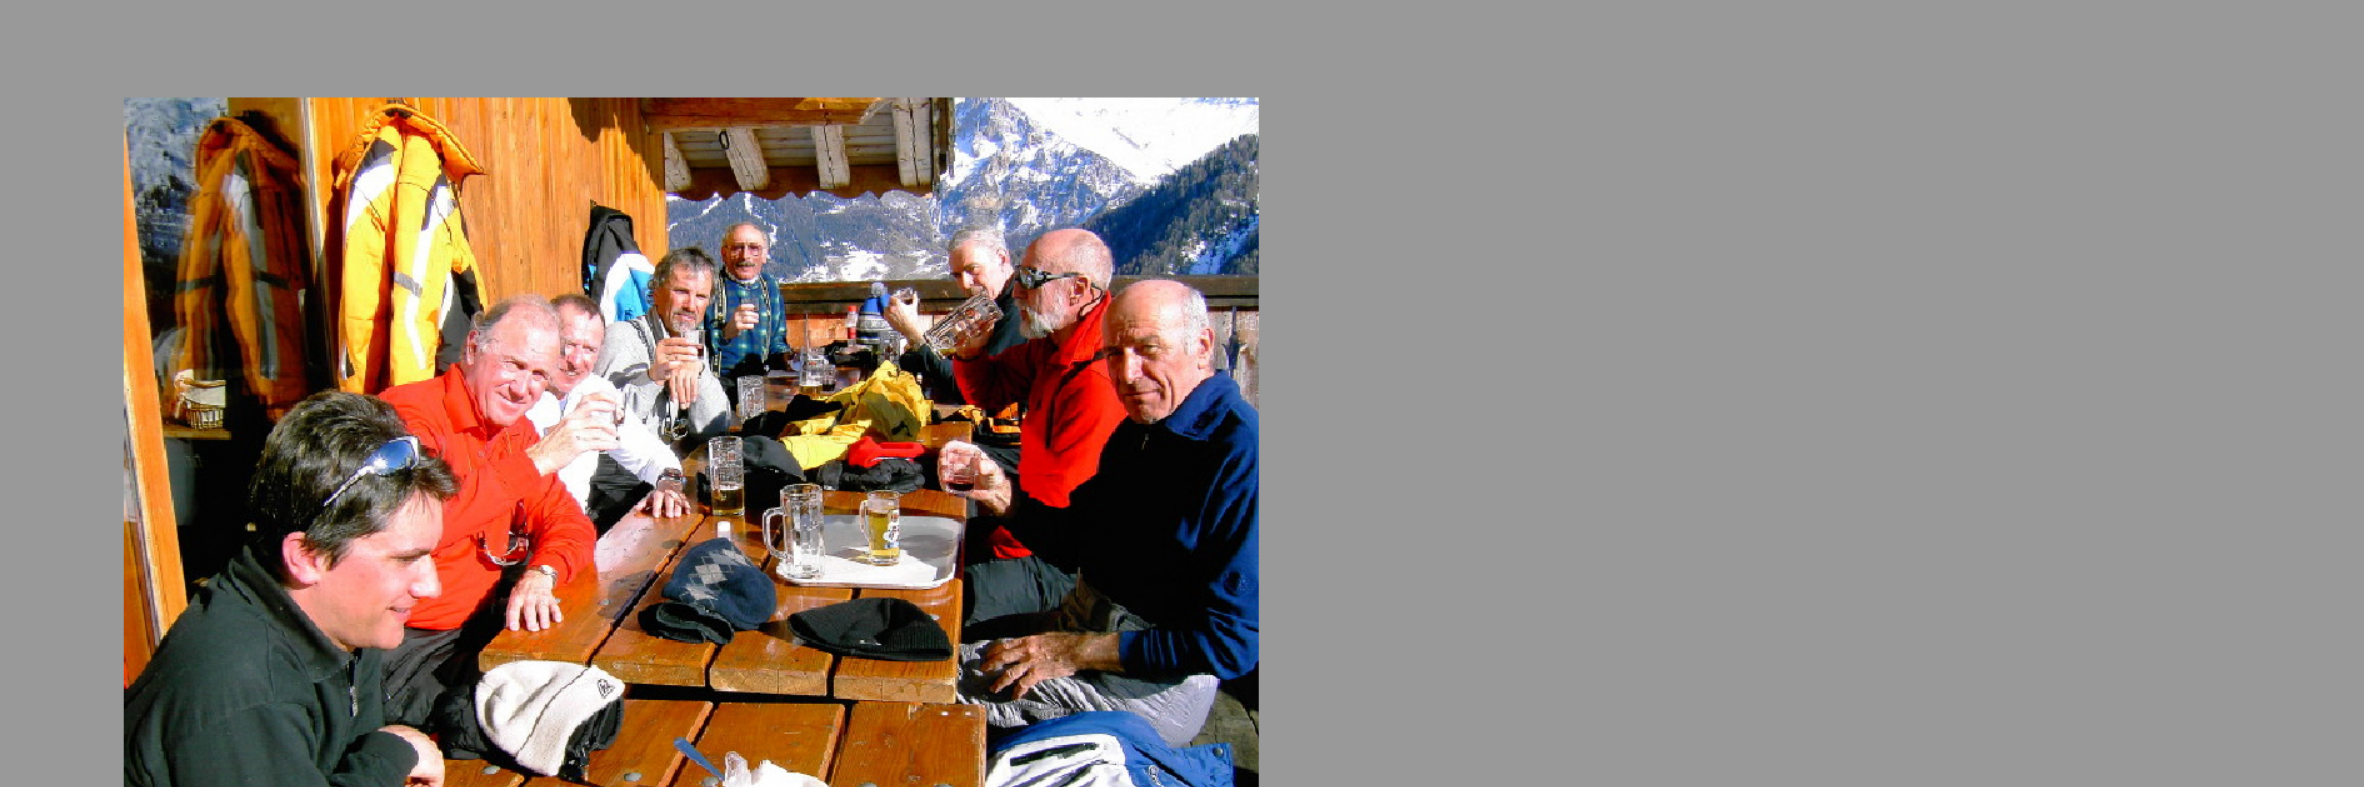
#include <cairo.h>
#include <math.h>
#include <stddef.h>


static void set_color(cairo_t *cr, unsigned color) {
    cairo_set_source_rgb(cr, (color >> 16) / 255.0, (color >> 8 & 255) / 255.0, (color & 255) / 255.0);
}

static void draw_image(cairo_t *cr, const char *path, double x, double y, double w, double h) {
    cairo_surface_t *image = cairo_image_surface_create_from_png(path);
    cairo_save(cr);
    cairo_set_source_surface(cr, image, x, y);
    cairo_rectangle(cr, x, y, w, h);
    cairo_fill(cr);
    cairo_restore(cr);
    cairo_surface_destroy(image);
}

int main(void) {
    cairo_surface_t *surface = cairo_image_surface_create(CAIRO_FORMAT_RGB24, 2364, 787);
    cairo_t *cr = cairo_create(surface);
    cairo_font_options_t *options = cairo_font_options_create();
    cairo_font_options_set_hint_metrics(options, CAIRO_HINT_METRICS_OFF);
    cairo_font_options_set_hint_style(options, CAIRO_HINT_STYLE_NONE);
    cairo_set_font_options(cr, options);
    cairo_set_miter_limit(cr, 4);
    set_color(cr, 0x999999);
    cairo_paint(cr);
    draw_image(cr, "assets/img1.png", 123, 97, 1136, 690);
    cairo_surface_write_to_png(surface, "output.png");
    cairo_font_options_destroy(options);
    cairo_destroy(cr);
    cairo_surface_destroy(surface);
    return 0;
}
